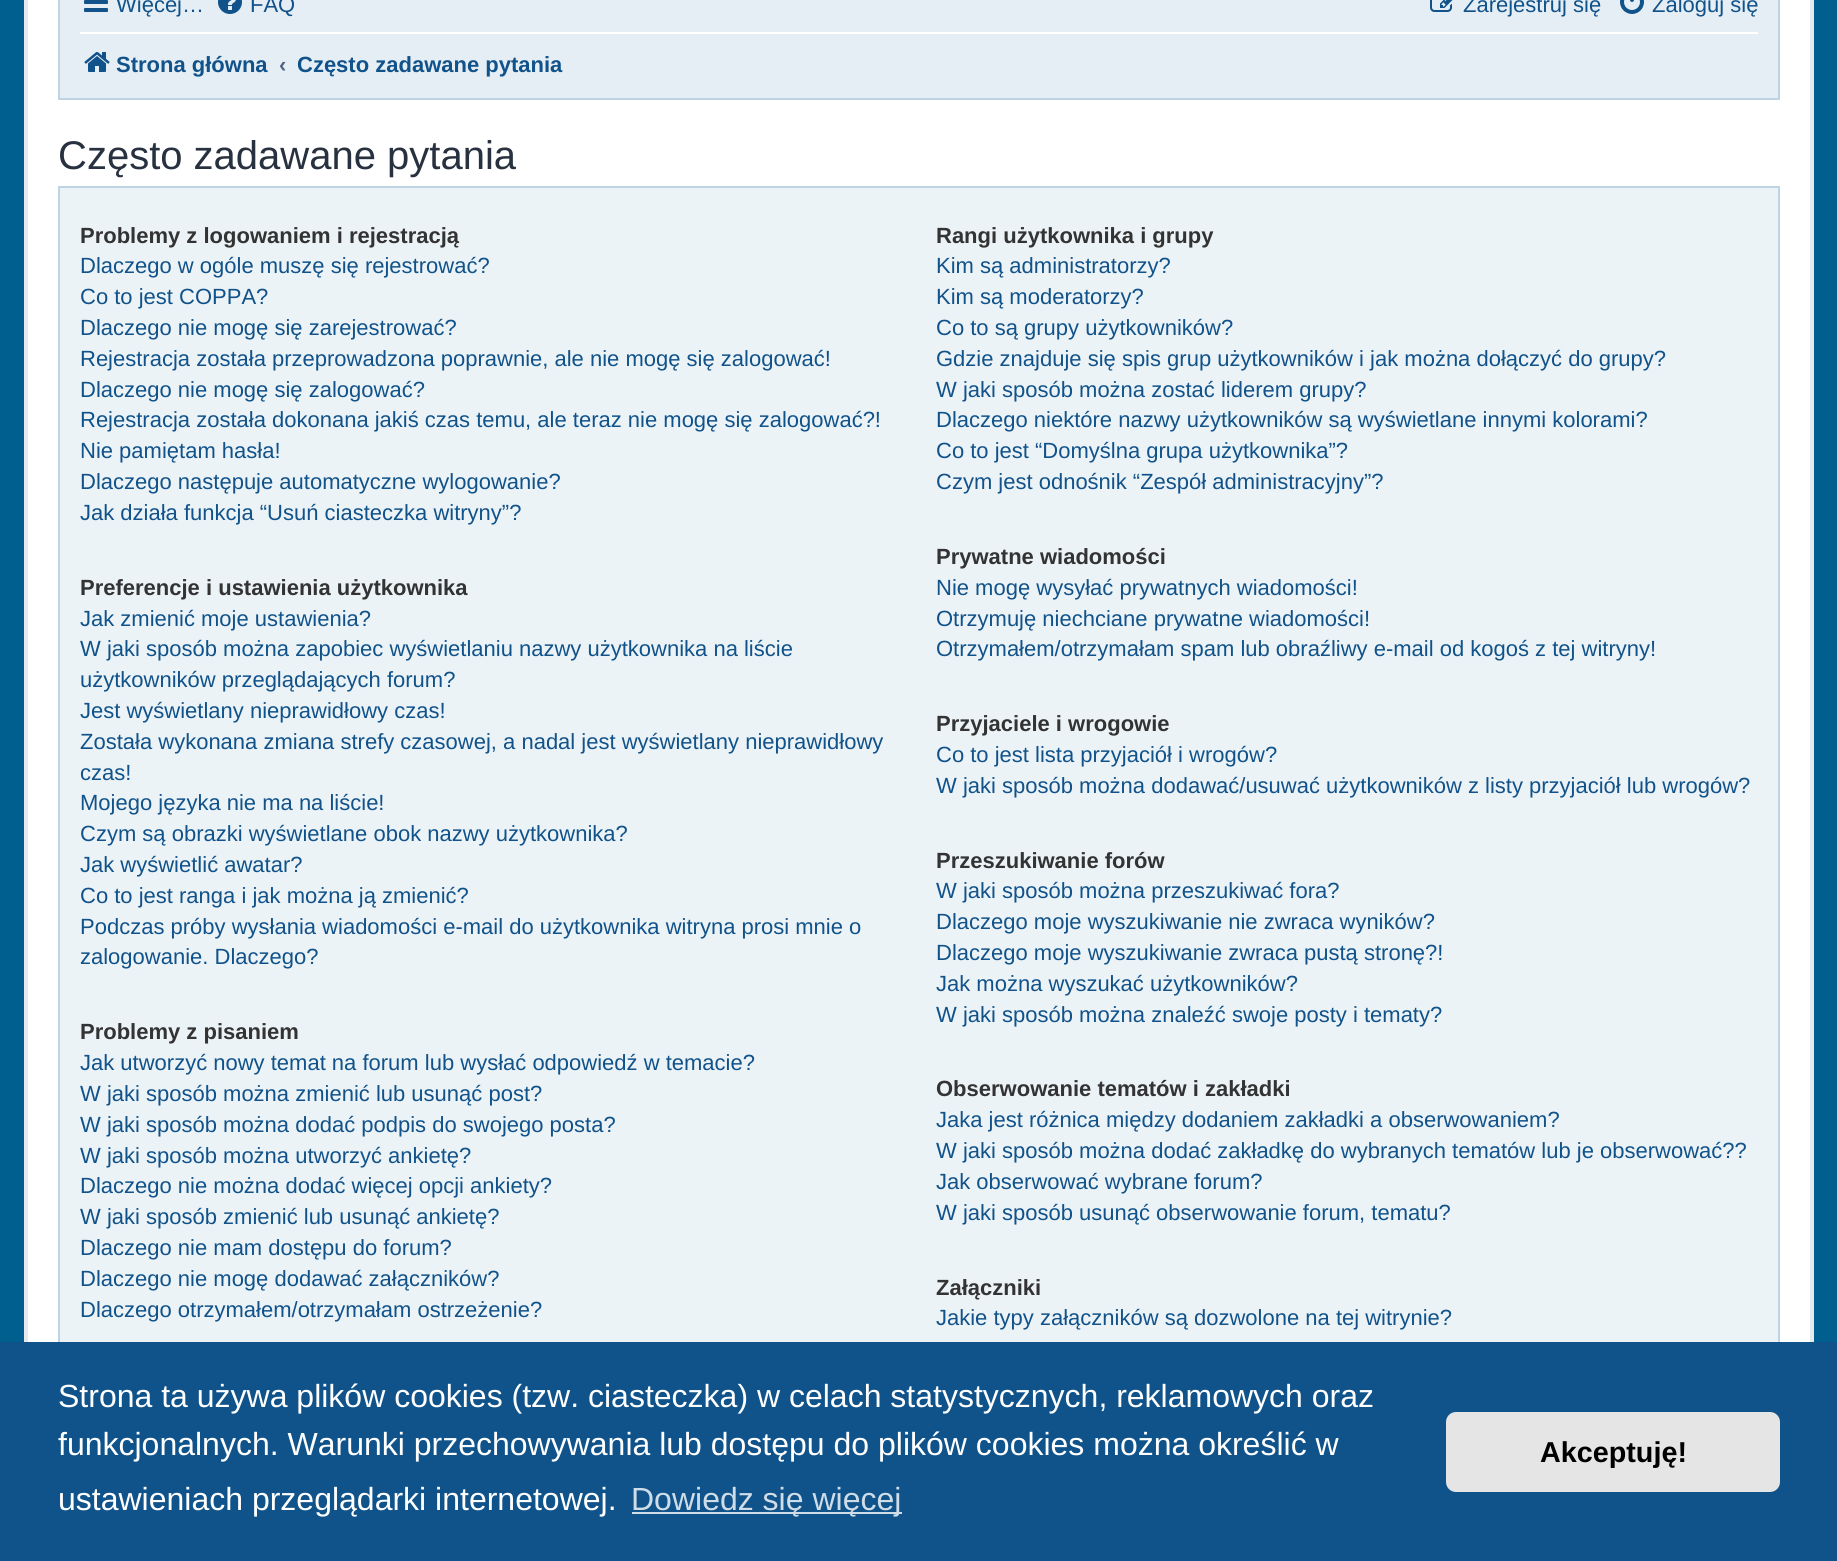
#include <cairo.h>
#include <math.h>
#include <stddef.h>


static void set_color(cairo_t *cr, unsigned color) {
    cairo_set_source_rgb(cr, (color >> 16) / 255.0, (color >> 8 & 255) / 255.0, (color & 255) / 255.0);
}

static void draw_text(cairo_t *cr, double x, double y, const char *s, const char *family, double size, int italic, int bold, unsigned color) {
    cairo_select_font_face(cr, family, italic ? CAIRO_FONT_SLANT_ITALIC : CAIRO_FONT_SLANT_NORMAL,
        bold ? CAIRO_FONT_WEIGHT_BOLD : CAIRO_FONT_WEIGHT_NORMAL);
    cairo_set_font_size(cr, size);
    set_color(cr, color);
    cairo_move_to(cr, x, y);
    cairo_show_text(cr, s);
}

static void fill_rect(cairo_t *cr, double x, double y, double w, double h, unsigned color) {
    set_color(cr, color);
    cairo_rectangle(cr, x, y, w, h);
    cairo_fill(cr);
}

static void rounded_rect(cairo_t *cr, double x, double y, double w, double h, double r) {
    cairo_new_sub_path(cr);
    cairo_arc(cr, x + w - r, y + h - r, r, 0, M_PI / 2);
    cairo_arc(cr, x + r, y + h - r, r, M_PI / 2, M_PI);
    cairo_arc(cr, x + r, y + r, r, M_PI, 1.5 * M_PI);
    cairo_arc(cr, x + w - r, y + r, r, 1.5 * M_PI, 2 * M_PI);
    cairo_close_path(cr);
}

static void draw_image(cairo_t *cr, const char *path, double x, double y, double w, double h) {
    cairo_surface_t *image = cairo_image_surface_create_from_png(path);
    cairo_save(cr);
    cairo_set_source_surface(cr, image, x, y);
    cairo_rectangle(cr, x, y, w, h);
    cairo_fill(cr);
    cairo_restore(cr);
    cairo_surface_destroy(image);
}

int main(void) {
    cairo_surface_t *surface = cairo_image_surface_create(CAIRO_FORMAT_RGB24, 1837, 1561);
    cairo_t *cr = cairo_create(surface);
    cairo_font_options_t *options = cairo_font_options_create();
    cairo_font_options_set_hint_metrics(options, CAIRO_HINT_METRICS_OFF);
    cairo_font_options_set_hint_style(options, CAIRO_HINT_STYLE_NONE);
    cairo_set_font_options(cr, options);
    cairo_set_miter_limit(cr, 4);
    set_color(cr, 0x005F8E);
    cairo_paint(cr);
    fill_rect(cr, 28, 0, 1782, 1342, 0xFFFFFF);
    cairo_rectangle(cr, 26, -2, 1786, 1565);
    set_color(cr, 0xE6E9ED);
    cairo_set_line_width(cr, 4);
    cairo_stroke(cr);
    set_color(cr, 0xE5EEF5);
    cairo_rectangle(cr, 59, -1, 1720, 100);
    cairo_fill_preserve(cr);
    set_color(cr, 0xBCD4E3);
    cairo_set_line_width(cr, 2);
    cairo_stroke(cr);
    draw_image(cr, "assets/img1.png", 84, 0, 24, 12);
    draw_text(cr, 116, 12, "Więcej…", "Liberation Sans", 22, 0, 0, 0x105289);
    draw_image(cr, "assets/img2.png", 218, 0, 24, 14);
    draw_text(cr, 250, 12, "FAQ", "Liberation Sans", 22, 0, 0, 0x105289);
    draw_image(cr, "assets/img3.png", 1430, 0, 23, 12);
    draw_text(cr, 1463, 12, "Zarejestruj się", "Liberation Sans", 22, 0, 0, 0x105289);
    draw_image(cr, "assets/img4.png", 1620, 0, 24, 14);
    draw_text(cr, 1652, 12, "Zaloguj się", "Liberation Sans", 22, 0, 0, 0x105289);
    fill_rect(cr, 80, 32, 1678, 2, 0xFFFFFF);
    draw_image(cr, "assets/img5.png", 84, 52, 26, 20);
    draw_text(cr, 116, 72, "Strona główna", "Liberation Sans", 22, 0, 1, 0x105289);
    draw_text(cr, 279, 72, "‹", "Liberation Sans", 22, 0, 1, 0x536482);
    draw_text(cr, 297, 72, "Często zadawane pytania", "Liberation Sans", 22, 0, 1, 0x105289);
    draw_text(cr, 58, 169, "Często zadawane pytania", "Liberation Sans", 40, 0, 0, 0x28313F);
    fill_rect(cr, 60, 188, 1718, 1154, 0xECF3F7);
    cairo_rectangle(cr, 59, 187, 1720, 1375);
    set_color(cr, 0xBCD4E3);
    cairo_stroke(cr);
    draw_text(cr, 80, 243, "Problemy z logowaniem i rejestracją", "Liberation Sans", 22, 0, 1, 0x333333);
    draw_text(cr, 80, 273, "Dlaczego w ogóle muszę się rejestrować?", "Liberation Sans", 22, 0, 0, 0x105289);
    draw_text(cr, 80, 304, "Co to jest COPPA?", "Liberation Sans", 22, 0, 0, 0x105289);
    draw_text(cr, 80, 335, "Dlaczego nie mogę się zarejestrować?", "Liberation Sans", 22, 0, 0, 0x105289);
    draw_text(cr, 80, 366, "Rejestracja została przeprowadzona poprawnie, ale nie mogę się zalogować!", "Liberation Sans", 22, 0, 0, 0x105289);
    draw_text(cr, 80, 397, "Dlaczego nie mogę się zalogować?", "Liberation Sans", 22, 0, 0, 0x105289);
    draw_text(cr, 80, 427, "Rejestracja została dokonana jakiś czas temu, ale teraz nie mogę się zalogować?!", "Liberation Sans", 22, 0, 0, 0x105289);
    draw_text(cr, 80, 458, "Nie pamiętam hasła!", "Liberation Sans", 22, 0, 0, 0x105289);
    draw_text(cr, 80, 489, "Dlaczego następuje automatyczne wylogowanie?", "Liberation Sans", 22, 0, 0, 0x105289);
    draw_text(cr, 80, 520, "Jak działa funkcja “Usuń ciasteczka witryny”?", "Liberation Sans", 22, 0, 0, 0x105289);
    draw_text(cr, 80, 595, "Preferencje i ustawienia użytkownika", "Liberation Sans", 22, 0, 1, 0x333333);
    draw_text(cr, 80, 626, "Jak zmienić moje ustawienia?", "Liberation Sans", 22, 0, 0, 0x105289);
    draw_text(cr, 80, 656, "W jaki sposób można zapobiec wyświetlaniu nazwy użytkownika na liście", "Liberation Sans", 22, 0, 0, 0x105289);
    draw_text(cr, 80, 687, "użytkowników przeglądających forum?", "Liberation Sans", 22, 0, 0, 0x105289);
    draw_text(cr, 80, 718, "Jest wyświetlany nieprawidłowy czas!", "Liberation Sans", 22, 0, 0, 0x105289);
    draw_text(cr, 80, 749, "Została wykonana zmiana strefy czasowej, a nadal jest wyświetlany nieprawidłowy", "Liberation Sans", 22, 0, 0, 0x105289);
    draw_text(cr, 80, 780, "czas!", "Liberation Sans", 22, 0, 0, 0x105289);
    draw_text(cr, 80, 810, "Mojego języka nie ma na liście!", "Liberation Sans", 22, 0, 0, 0x105289);
    draw_text(cr, 80, 841, "Czym są obrazki wyświetlane obok nazwy użytkownika?", "Liberation Sans", 22, 0, 0, 0x105289);
    draw_text(cr, 80, 872, "Jak wyświetlić awatar?", "Liberation Sans", 22, 0, 0, 0x105289);
    draw_text(cr, 80, 903, "Co to jest ranga i jak można ją zmienić?", "Liberation Sans", 22, 0, 0, 0x105289);
    draw_text(cr, 80, 934, "Podczas próby wysłania wiadomości e-mail do użytkownika witryna prosi mnie o", "Liberation Sans", 22, 0, 0, 0x105289);
    draw_text(cr, 80, 964, "zalogowanie. Dlaczego?", "Liberation Sans", 22, 0, 0, 0x105289);
    draw_text(cr, 80, 1039, "Problemy z pisaniem", "Liberation Sans", 22, 0, 1, 0x333333);
    draw_text(cr, 80, 1070, "Jak utworzyć nowy temat na forum lub wysłać odpowiedź w temacie?", "Liberation Sans", 22, 0, 0, 0x105289);
    draw_text(cr, 80, 1101, "W jaki sposób można zmienić lub usunąć post?", "Liberation Sans", 22, 0, 0, 0x105289);
    draw_text(cr, 80, 1132, "W jaki sposób można dodać podpis do swojego posta?", "Liberation Sans", 22, 0, 0, 0x105289);
    draw_text(cr, 80, 1163, "W jaki sposób można utworzyć ankietę?", "Liberation Sans", 22, 0, 0, 0x105289);
    draw_text(cr, 80, 1193, "Dlaczego nie można dodać więcej opcji ankiety?", "Liberation Sans", 22, 0, 0, 0x105289);
    draw_text(cr, 80, 1224, "W jaki sposób zmienić lub usunąć ankietę?", "Liberation Sans", 22, 0, 0, 0x105289);
    draw_text(cr, 80, 1255, "Dlaczego nie mam dostępu do forum?", "Liberation Sans", 22, 0, 0, 0x105289);
    draw_text(cr, 80, 1286, "Dlaczego nie mogę dodawać załączników?", "Liberation Sans", 22, 0, 0, 0x105289);
    draw_text(cr, 80, 1317, "Dlaczego otrzymałem/otrzymałam ostrzeżenie?", "Liberation Sans", 22, 0, 0, 0x105289);
    draw_text(cr, 936, 243, "Rangi użytkownika i grupy", "Liberation Sans", 22, 0, 1, 0x333333);
    draw_text(cr, 936, 273, "Kim są administratorzy?", "Liberation Sans", 22, 0, 0, 0x105289);
    draw_text(cr, 936, 304, "Kim są moderatorzy?", "Liberation Sans", 22, 0, 0, 0x105289);
    draw_text(cr, 936, 335, "Co to są grupy użytkowników?", "Liberation Sans", 22, 0, 0, 0x105289);
    draw_text(cr, 936, 366, "Gdzie znajduje się spis grup użytkowników i jak można dołączyć do grupy?", "Liberation Sans", 22, 0, 0, 0x105289);
    draw_text(cr, 936, 397, "W jaki sposób można zostać liderem grupy?", "Liberation Sans", 22, 0, 0, 0x105289);
    draw_text(cr, 936, 427, "Dlaczego niektóre nazwy użytkowników są wyświetlane innymi kolorami?", "Liberation Sans", 22, 0, 0, 0x105289);
    draw_text(cr, 936, 458, "Co to jest “Domyślna grupa użytkownika”?", "Liberation Sans", 22, 0, 0, 0x105289);
    draw_text(cr, 936, 489, "Czym jest odnośnik “Zespół administracyjny”?", "Liberation Sans", 22, 0, 0, 0x105289);
    draw_text(cr, 936, 564, "Prywatne wiadomości", "Liberation Sans", 22, 0, 1, 0x333333);
    draw_text(cr, 936, 595, "Nie mogę wysyłać prywatnych wiadomości!", "Liberation Sans", 22, 0, 0, 0x105289);
    draw_text(cr, 936, 626, "Otrzymuję niechciane prywatne wiadomości!", "Liberation Sans", 22, 0, 0, 0x105289);
    draw_text(cr, 936, 656, "Otrzymałem/otrzymałam spam lub obraźliwy e-mail od kogoś z tej witryny!", "Liberation Sans", 22, 0, 0, 0x105289);
    draw_text(cr, 936, 731, "Przyjaciele i wrogowie", "Liberation Sans", 22, 0, 1, 0x333333);
    draw_text(cr, 936, 762, "Co to jest lista przyjaciół i wrogów?", "Liberation Sans", 22, 0, 0, 0x105289);
    draw_text(cr, 936, 793, "W jaki sposób można dodawać/usuwać użytkowników z listy przyjaciół lub wrogów?", "Liberation Sans", 22, 0, 0, 0x105289);
    draw_text(cr, 936, 868, "Przeszukiwanie forów", "Liberation Sans", 22, 0, 1, 0x333333);
    draw_text(cr, 936, 898, "W jaki sposób można przeszukiwać fora?", "Liberation Sans", 22, 0, 0, 0x105289);
    draw_text(cr, 936, 929, "Dlaczego moje wyszukiwanie nie zwraca wyników?", "Liberation Sans", 22, 0, 0, 0x105289);
    draw_text(cr, 936, 960, "Dlaczego moje wyszukiwanie zwraca pustą stronę?!", "Liberation Sans", 22, 0, 0, 0x105289);
    draw_text(cr, 936, 991, "Jak można wyszukać użytkowników?", "Liberation Sans", 22, 0, 0, 0x105289);
    draw_text(cr, 936, 1022, "W jaki sposób można znaleźć swoje posty i tematy?", "Liberation Sans", 22, 0, 0, 0x105289);
    draw_text(cr, 936, 1096, "Obserwowanie tematów i zakładki", "Liberation Sans", 22, 0, 1, 0x333333);
    draw_text(cr, 936, 1127, "Jaka jest różnica między dodaniem zakładki a obserwowaniem?", "Liberation Sans", 22, 0, 0, 0x105289);
    draw_text(cr, 936, 1158, "W jaki sposób można dodać zakładkę do wybranych tematów lub je obserwować?\077", "Liberation Sans", 22, 0, 0, 0x105289);
    draw_text(cr, 936, 1189, "Jak obserwować wybrane forum?", "Liberation Sans", 22, 0, 0, 0x105289);
    draw_text(cr, 936, 1220, "W jaki sposób usunąć obserwowanie forum, tematu?", "Liberation Sans", 22, 0, 0, 0x105289);
    draw_text(cr, 936, 1295, "Załączniki", "Liberation Sans", 22, 0, 1, 0x333333);
    draw_text(cr, 936, 1325, "Jakie typy załączników są dozwolone na tej witrynie?", "Liberation Sans", 22, 0, 0, 0x105289);
    fill_rect(cr, 0, 1342, 1837, 219, 0x0F538A);
    draw_text(cr, 58, 1407, "Strona ta używa plików cookies (tzw. ciasteczka) w celach statystycznych, reklamowych oraz", "Liberation Sans", 32, 0, 0, 0xFFFFFF);
    draw_text(cr, 58, 1455, "funkcjonalnych. Warunki przechowywania lub dostępu do plików cookies można określić w", "Liberation Sans", 32, 0, 0, 0xFFFFFF);
    draw_text(cr, 58, 1510, "ustawieniach przeglądarki internetowej.", "Liberation Sans", 32, 0, 0, 0xFFFFFF);
    fill_rect(cr, 632, 1512, 270, 2, 0xCFDDE8);
    draw_text(cr, 631, 1510, "Dowiedz się więcej", "Liberation Sans", 32, 0, 0, 0xCFDDE8);
    set_color(cr, 0xE5E5E5);
    rounded_rect(cr, 1446, 1412, 334, 80, 10);
    cairo_fill(cr);
    draw_text(cr, 1540, 1462, "Akceptuję!", "Liberation Sans", 28.75, 0, 1, 0x000000);
    cairo_surface_write_to_png(surface, "output.png");
    cairo_font_options_destroy(options);
    cairo_destroy(cr);
    cairo_surface_destroy(surface);
    return 0;
}
